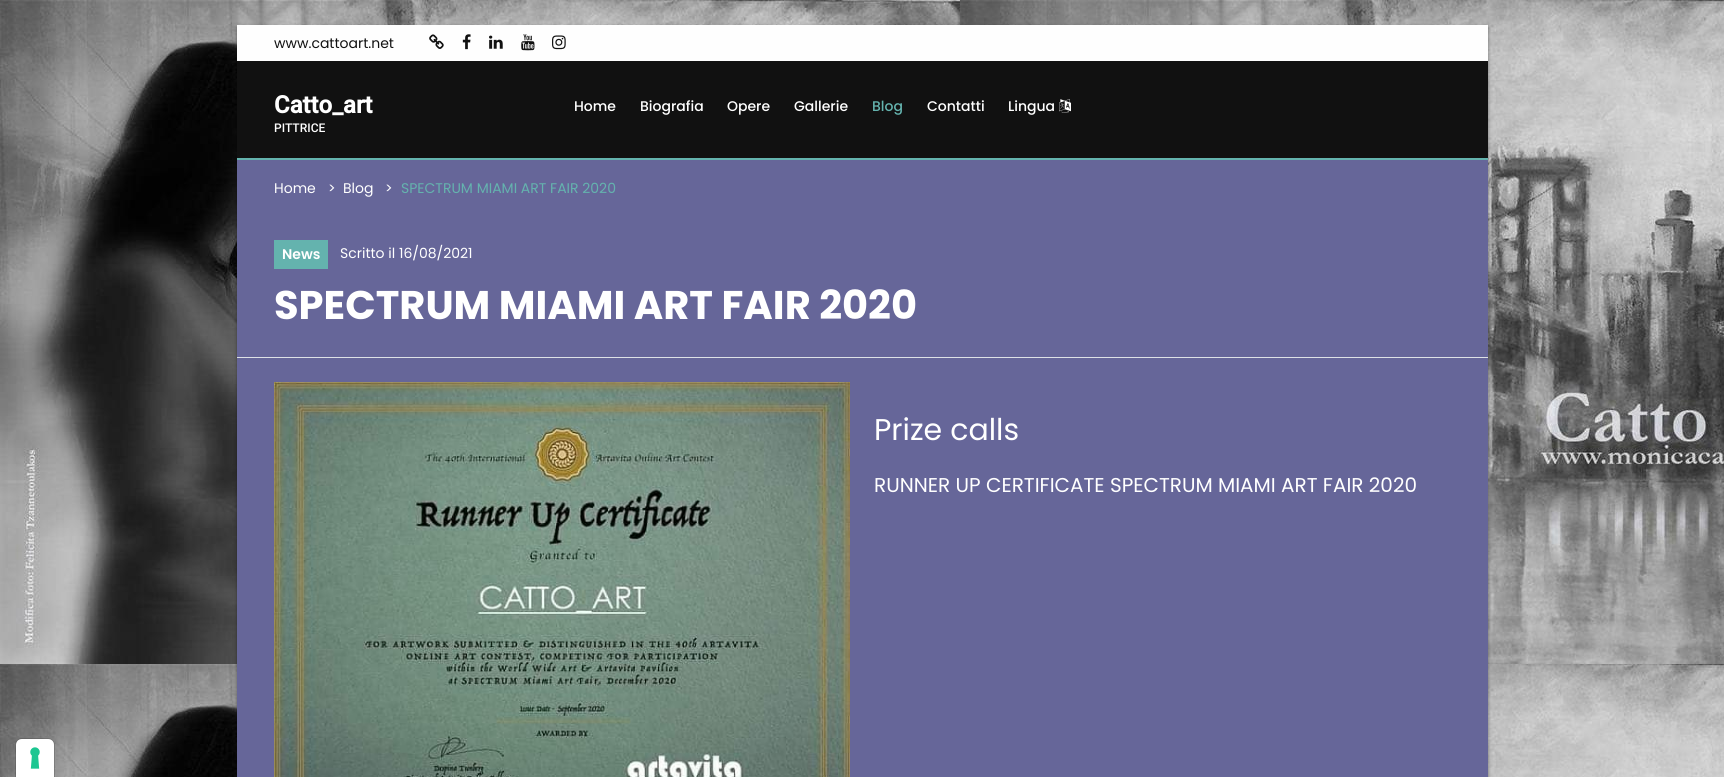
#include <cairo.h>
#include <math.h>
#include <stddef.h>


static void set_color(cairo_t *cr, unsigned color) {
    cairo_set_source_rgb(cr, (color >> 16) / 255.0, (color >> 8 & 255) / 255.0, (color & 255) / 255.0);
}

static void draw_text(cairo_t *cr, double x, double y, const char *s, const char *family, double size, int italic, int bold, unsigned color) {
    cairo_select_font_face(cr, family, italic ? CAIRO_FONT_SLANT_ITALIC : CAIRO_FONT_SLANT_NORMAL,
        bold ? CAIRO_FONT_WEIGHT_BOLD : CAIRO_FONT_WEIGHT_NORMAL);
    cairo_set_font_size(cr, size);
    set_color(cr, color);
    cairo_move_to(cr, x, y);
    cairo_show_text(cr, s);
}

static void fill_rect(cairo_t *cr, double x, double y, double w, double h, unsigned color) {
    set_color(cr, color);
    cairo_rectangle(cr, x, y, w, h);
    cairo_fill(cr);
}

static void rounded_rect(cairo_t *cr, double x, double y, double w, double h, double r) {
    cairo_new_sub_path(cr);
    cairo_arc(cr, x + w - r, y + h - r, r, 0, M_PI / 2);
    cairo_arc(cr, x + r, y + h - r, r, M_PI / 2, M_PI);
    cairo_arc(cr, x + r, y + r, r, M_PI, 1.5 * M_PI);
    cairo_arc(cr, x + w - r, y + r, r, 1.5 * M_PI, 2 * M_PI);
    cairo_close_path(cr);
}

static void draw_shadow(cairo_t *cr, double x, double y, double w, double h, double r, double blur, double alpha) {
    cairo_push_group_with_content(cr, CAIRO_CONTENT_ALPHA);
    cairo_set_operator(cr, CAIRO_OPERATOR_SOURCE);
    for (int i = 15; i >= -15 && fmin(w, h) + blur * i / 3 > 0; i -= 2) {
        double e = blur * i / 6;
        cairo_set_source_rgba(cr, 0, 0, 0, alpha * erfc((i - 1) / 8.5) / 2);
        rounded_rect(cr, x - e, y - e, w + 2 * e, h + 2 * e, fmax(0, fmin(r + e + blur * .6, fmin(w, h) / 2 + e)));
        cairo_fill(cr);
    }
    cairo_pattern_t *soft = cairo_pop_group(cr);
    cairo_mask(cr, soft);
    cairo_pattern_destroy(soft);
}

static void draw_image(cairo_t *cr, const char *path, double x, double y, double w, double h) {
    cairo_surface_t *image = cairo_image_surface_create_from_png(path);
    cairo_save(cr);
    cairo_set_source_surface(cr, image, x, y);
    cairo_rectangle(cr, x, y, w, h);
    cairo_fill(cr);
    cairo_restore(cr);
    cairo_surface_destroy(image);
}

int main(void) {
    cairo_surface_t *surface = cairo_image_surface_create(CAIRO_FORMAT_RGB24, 1724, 777);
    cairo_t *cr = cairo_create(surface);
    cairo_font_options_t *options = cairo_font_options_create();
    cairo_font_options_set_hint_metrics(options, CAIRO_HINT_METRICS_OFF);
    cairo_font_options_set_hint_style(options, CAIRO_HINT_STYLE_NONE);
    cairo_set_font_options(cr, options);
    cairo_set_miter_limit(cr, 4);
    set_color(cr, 0xFFFFFF);
    cairo_paint(cr);
    draw_image(cr, "assets/img1.png", 0, 0, 1724, 777);
    set_color(cr, 0x000000);
    draw_shadow(cr, 237, 27, 1251, 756, 0, 2, 0.4);
    fill_rect(cr, 237, 160, 1251, 617, 0x666699);
    fill_rect(cr, 237, 25, 1251, 36, 0xFEFEFE);
    draw_text(cr, 274, 48, "www.cattoart.net", "Poppins", 14, 0, 0, 0x111111);
    draw_image(cr, "assets/img2.png", 429, 34, 15, 15);
    draw_image(cr, "assets/img3.png", 462, 34, 9, 16);
    draw_image(cr, "assets/img4.png", 489, 35, 14, 14);
    draw_image(cr, "assets/img5.png", 521, 34, 14, 17);
    draw_image(cr, "assets/img6.png", 552, 35, 14, 15);
    fill_rect(cr, 237, 61, 1251, 97, 0x111111);
    fill_rect(cr, 237, 158, 1251, 2, 0x64B3AE);
    draw_text(cr, 274, 113, "Catto_art", "Roboto", 24, 0, 1, 0xFFFFFF);
    draw_text(cr, 274, 132, "PITTRICE", "Roboto Medium", 12, 0, 0, 0xFFFFFF);
    draw_text(cr, 574, 111, "Home", "Poppins Medium", 14, 0, 0, 0xFFFFFF);
    draw_text(cr, 640, 111, "Biografia", "Poppins Medium", 14, 0, 0, 0xFFFFFF);
    draw_text(cr, 727, 111, "Opere", "Poppins Medium", 14, 0, 0, 0xFFFFFF);
    draw_text(cr, 794, 111, "Gallerie", "Poppins Medium", 14, 0, 0, 0xFFFFFF);
    draw_text(cr, 872, 111, "Blog", "Poppins Medium", 14, 0, 0, 0x64B3AE);
    draw_text(cr, 927, 111, "Contatti", "Poppins Medium", 14, 0, 0, 0xFFFFFF);
    draw_text(cr, 1008, 111, "Lingua", "Poppins Medium", 14, 0, 0, 0xFFFFFF);
    draw_image(cr, "assets/img7.png", 1059, 99, 12, 14);
    draw_text(cr, 274, 193, "Home", "Poppins", 14, 0, 0, 0xFFFFFF);
    draw_text(cr, 328, 193, ">", "Poppins", 14, 0, 0, 0xFFFFFF);
    draw_text(cr, 343, 193, "Blog", "Poppins", 14, 0, 0, 0xFFFFFF);
    draw_text(cr, 385, 193, ">", "Poppins", 14, 0, 0, 0xFFFFFF);
    draw_text(cr, 401, 193, "SPECTRUM MIAMI ART FAIR 2020", "Poppins", 14, 0, 0, 0x64B3AE);
    fill_rect(cr, 237, 357, 1251, 1, 0xDEE2E6);
    fill_rect(cr, 274, 240, 54, 29, 0x64B3AE);
    draw_text(cr, 282, 259, "News", "Poppins SemiBold", 14, 0, 0, 0xFFFFFF);
    draw_text(cr, 340, 258, "Scritto il 16/08/2021", "Poppins", 14, 0, 0, 0xFFFFFF);
    draw_text(cr, 274, 319, "SPECTRUM MIAMI ART FAIR 2020", "Poppins", 40, 0, 1, 0xFFFFFF);
    draw_image(cr, "assets/img8.png", 274, 382, 576, 395);
    draw_text(cr, 874, 440, "Prize calls", "Poppins", 30, 0, 0, 0xFFFFFF);
    draw_text(cr, 874, 492, "RUNNER UP CERTIFICATE SPECTRUM MIAMI ART FAIR 2020", "Poppins", 20, 0, 0, 0xFFFFFF);
    cairo_new_path(cr);
    cairo_move_to(cr, 22, 738.5);
    cairo_line_to(cr, 48, 738.5);
    cairo_curve_to(cr, 51.5, 738.5, 54.5, 741.5, 54.5, 745);
    cairo_line_to(cr, 54.5, 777.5);
    cairo_line_to(cr, 15.5, 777.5);
    cairo_line_to(cr, 15.5, 745);
    cairo_curve_to(cr, 15.5, 741.5, 18.5, 738.5, 22, 738.5);
    cairo_close_path(cr);
    cairo_set_source_rgba(cr, 0, 0, 0, 0.15);
    cairo_set_line_width(cr, 1);
    cairo_stroke(cr);
    set_color(cr, 0xFFFFFF);
    cairo_new_path(cr);
    cairo_move_to(cr, 22, 739);
    cairo_line_to(cr, 48, 739);
    cairo_curve_to(cr, 51.5, 739, 54, 741.5, 54, 745);
    cairo_line_to(cr, 54, 777);
    cairo_line_to(cr, 16, 777);
    cairo_line_to(cr, 16, 745);
    cairo_curve_to(cr, 16, 741.5, 18.5, 739, 22, 739);
    cairo_close_path(cr);
    cairo_fill(cr);
    draw_image(cr, "assets/img9.png", 30, 747, 10, 22);
    cairo_surface_write_to_png(surface, "output.png");
    cairo_font_options_destroy(options);
    cairo_destroy(cr);
    cairo_surface_destroy(surface);
    return 0;
}
